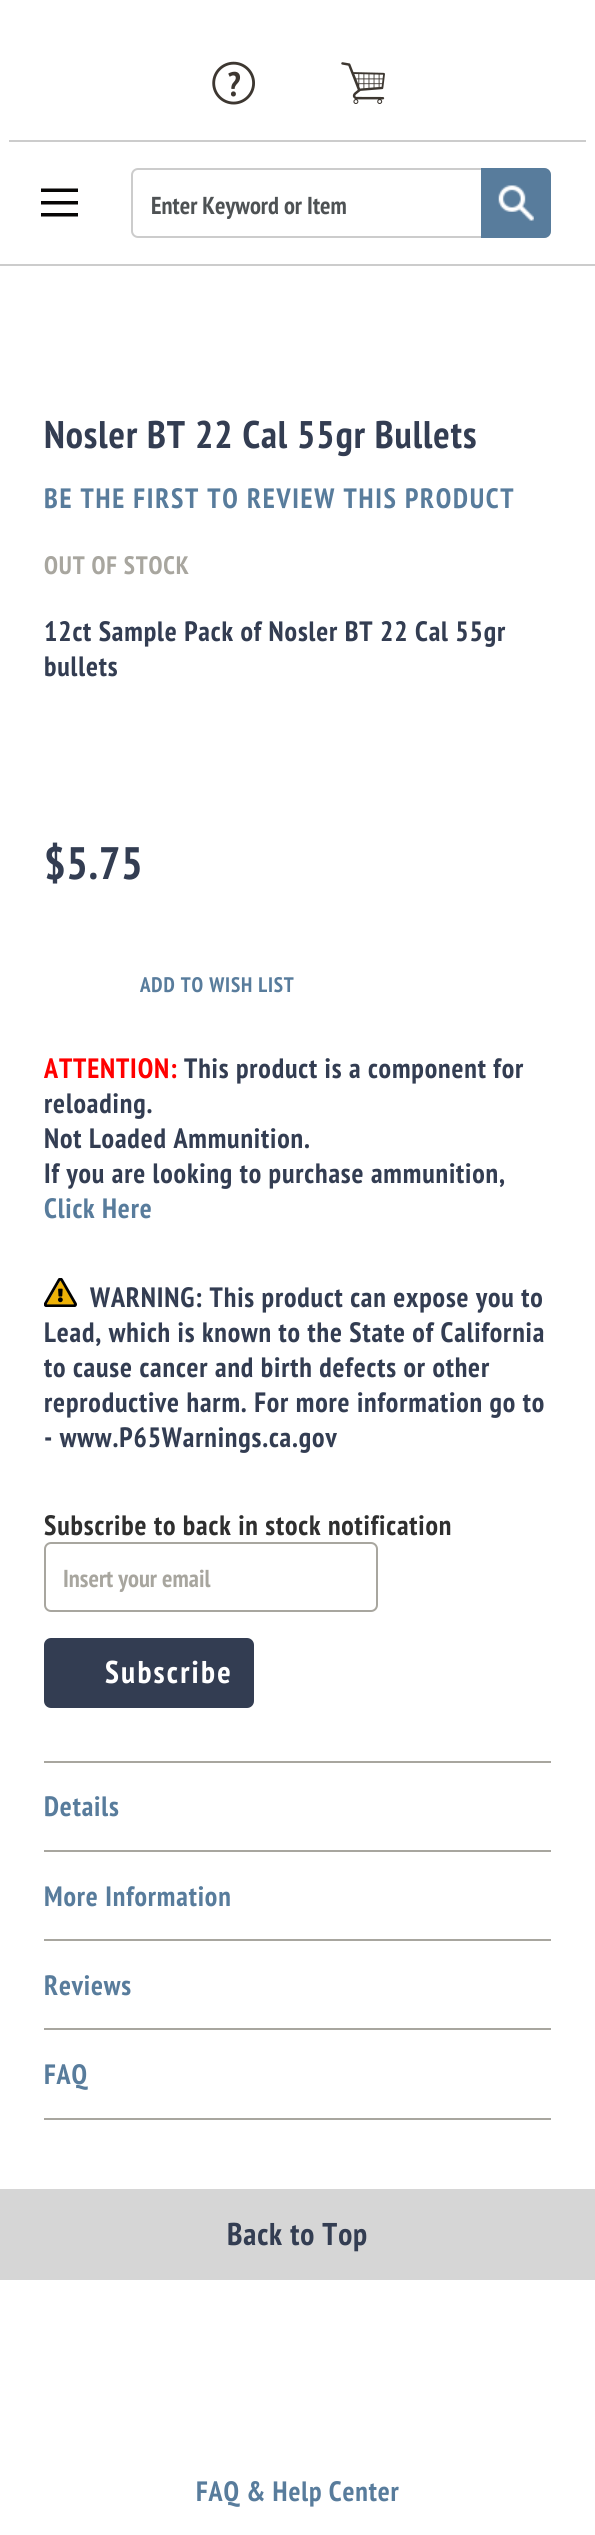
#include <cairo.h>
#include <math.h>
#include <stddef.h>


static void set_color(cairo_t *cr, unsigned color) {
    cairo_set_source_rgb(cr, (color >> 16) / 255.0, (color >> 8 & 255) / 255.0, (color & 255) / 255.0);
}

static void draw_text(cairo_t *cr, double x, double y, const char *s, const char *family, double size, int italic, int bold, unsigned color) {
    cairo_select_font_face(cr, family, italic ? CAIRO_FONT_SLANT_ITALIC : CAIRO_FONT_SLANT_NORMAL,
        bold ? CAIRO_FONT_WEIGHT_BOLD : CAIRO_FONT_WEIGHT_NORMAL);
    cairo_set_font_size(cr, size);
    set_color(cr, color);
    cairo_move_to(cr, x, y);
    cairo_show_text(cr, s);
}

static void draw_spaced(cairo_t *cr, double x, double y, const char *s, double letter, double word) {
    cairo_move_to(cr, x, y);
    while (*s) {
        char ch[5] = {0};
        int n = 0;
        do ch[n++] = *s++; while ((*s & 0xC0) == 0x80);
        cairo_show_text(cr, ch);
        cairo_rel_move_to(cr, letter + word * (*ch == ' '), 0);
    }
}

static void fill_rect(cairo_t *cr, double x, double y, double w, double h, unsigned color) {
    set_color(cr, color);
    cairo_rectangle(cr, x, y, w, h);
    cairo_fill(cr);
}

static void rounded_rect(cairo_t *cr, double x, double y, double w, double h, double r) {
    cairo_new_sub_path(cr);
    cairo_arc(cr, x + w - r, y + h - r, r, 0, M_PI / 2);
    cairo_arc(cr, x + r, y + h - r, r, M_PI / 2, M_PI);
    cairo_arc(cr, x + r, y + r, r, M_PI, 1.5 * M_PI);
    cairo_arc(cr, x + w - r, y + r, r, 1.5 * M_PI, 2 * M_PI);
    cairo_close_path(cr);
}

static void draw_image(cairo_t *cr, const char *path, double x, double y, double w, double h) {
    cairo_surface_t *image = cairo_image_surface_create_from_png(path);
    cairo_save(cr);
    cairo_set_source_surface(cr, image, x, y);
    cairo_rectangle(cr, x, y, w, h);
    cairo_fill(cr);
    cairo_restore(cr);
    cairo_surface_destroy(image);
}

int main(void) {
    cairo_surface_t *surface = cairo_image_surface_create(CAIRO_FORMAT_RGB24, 595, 2535);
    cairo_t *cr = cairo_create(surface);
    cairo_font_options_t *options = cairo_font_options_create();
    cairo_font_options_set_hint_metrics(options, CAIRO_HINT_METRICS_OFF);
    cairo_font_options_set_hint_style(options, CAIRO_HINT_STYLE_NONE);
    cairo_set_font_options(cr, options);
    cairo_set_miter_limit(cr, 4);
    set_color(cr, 0xFFFFFF);
    cairo_paint(cr);
    fill_rect(cr, 0, 264, 595, 2, 0xCCCCCC);
    draw_image(cr, "assets/img1.png", 212, 61, 43, 44);
    draw_image(cr, "assets/img2.png", 341, 62, 44, 42);
    set_color(cr, 0x070605);
    cairo_new_path(cr);
    cairo_move_to(cr, 41, 188.5);
    cairo_line_to(cr, 41, 192);
    cairo_line_to(cr, 78, 192);
    cairo_line_to(cr, 78, 188.5);
    cairo_close_path(cr);
    cairo_move_to(cr, 41, 204.5);
    cairo_line_to(cr, 78, 204.5);
    cairo_line_to(cr, 78, 201);
    cairo_line_to(cr, 41, 201);
    cairo_close_path(cr);
    cairo_move_to(cr, 41, 216.5);
    cairo_line_to(cr, 78, 216.5);
    cairo_line_to(cr, 78, 213);
    cairo_line_to(cr, 41, 213);
    cairo_close_path(cr);
    cairo_fill(cr);
    fill_rect(cr, 9, 140, 577, 2, 0xCCCCCC);
    rounded_rect(cr, 132, 169, 418, 68, 6);
    cairo_stroke(cr);
    draw_text(cr, 151, 214, "Enter Keyword or Item", "PT Sans Narrow", 24.5, 0, 1, 0x4E5254);
    set_color(cr, 0x587C9C);
    cairo_new_path(cr);
    cairo_move_to(cr, 481, 168);
    cairo_line_to(cr, 544, 168);
    cairo_curve_to(cr, 548, 168, 551, 171, 551, 175);
    cairo_line_to(cr, 551, 231);
    cairo_curve_to(cr, 551, 235, 548, 238, 544, 238);
    cairo_line_to(cr, 481, 238);
    cairo_close_path(cr);
    cairo_fill(cr);
    draw_image(cr, "assets/img3.png", 498, 185, 36, 36);
    cairo_set_font_size(cr, 38.5);
    set_color(cr, 0x333D52);
    draw_spaced(cr, 44, 448, "Nosler BT 22 Cal 55gr Bullets", 0.95, 0);
    cairo_set_font_size(cr, 28);
    set_color(cr, 0x587C9C);
    draw_spaced(cr, 44, 508, "BE THE FIRST TO REVIEW THIS PRODUCT", 1.7, 0);
    cairo_set_font_size(cr, 25.25);
    set_color(cr, 0xA8A69F);
    draw_spaced(cr, 44, 574, "OUT OF STOCK", 0.85, 0);
    cairo_set_font_size(cr, 28);
    set_color(cr, 0x333D52);
    draw_spaced(cr, 44, 641, "12ct Sample Pack of Nosler BT 22 Cal 55gr", 0.85, 0);
    draw_spaced(cr, 44, 676, "bullets", 0.85, 0);
    cairo_set_font_size(cr, 45.5);
    draw_spaced(cr, 44, 879, "$5.75", 0.5, 0);
    cairo_set_font_size(cr, 21);
    set_color(cr, 0x587C9C);
    draw_spaced(cr, 140, 992, "ADD TO WISH LIST", 0.85, 0);
    cairo_set_font_size(cr, 28);
    set_color(cr, 0xFF0000);
    draw_spaced(cr, 44, 1078, "ATTENTION:", 0.85, 0);
    set_color(cr, 0x333D52);
    draw_spaced(cr, 184, 1078, "This product is a component for", 0.85, 0);
    draw_spaced(cr, 44, 1113, "reloading.", 0.85, 0);
    draw_spaced(cr, 44, 1148, "Not Loaded Ammunition.", 0.85, 0);
    draw_spaced(cr, 44, 1183, "If you are looking to purchase ammunition,", 0.85, 0);
    set_color(cr, 0x587C9C);
    draw_spaced(cr, 44, 1218, "Click Here", 0.85, 0);
    draw_image(cr, "assets/img4.png", 44, 1278, 33, 29);
    set_color(cr, 0x333D52);
    draw_spaced(cr, 90, 1307, "WARNING: This product can expose you to", 0.85, 0);
    draw_spaced(cr, 44, 1342, "Lead, which is known to the State of California", 0.85, 0);
    draw_spaced(cr, 44, 1377, "to cause cancer and birth defects or other", 0.85, 0);
    draw_spaced(cr, 44, 1412, "reproductive harm. For more information go to", 0.85, 0);
    draw_spaced(cr, 44, 1447, "- www.P65Warnings.ca.gov", 0.85, 0);
    set_color(cr, 0x2F2F2F);
    draw_spaced(cr, 44, 1535, "Subscribe to back in stock notification", 0.85, 0);
    rounded_rect(cr, 45, 1543, 332, 68, 6);
    set_color(cr, 0xA8A69F);
    cairo_stroke(cr);
    draw_text(cr, 63, 1587, "Insert your email", "PT Sans Narrow", 24.5, 0, 1, 0xA8A69F);
    set_color(cr, 0x333D52);
    rounded_rect(cr, 44, 1638, 210, 70, 7);
    cairo_fill(cr);
    cairo_set_font_size(cr, 31.5);
    set_color(cr, 0xFFFFFF);
    draw_spaced(cr, 105, 1683, "Subscribe", 2.25, 0);
    fill_rect(cr, 44, 1761, 507, 2, 0xA8A69F);
    fill_rect(cr, 44, 1850, 507, 2, 0xA8A69F);
    cairo_set_font_size(cr, 28);
    set_color(cr, 0x587C9C);
    draw_spaced(cr, 44, 1816, "Details", 0.85, 0);
    fill_rect(cr, 44, 1939, 507, 2, 0xA8A69F);
    set_color(cr, 0x587C9C);
    draw_spaced(cr, 44, 1906, "More Information", 0.85, 0);
    fill_rect(cr, 44, 2028, 507, 2, 0xA8A69F);
    set_color(cr, 0x587C9C);
    draw_spaced(cr, 44, 1995, "Reviews", 0.85, 0);
    fill_rect(cr, 44, 2118, 507, 2, 0xA8A69F);
    set_color(cr, 0x587C9C);
    draw_spaced(cr, 44, 2084, "FAQ", 0.85, 0);
    fill_rect(cr, 0, 2189, 595, 91, 0xD6D6D6);
    cairo_set_font_size(cr, 31.5);
    set_color(cr, 0x333D52);
    draw_spaced(cr, 227, 2245, "Back to Top", 0.85, 0);
    cairo_set_font_size(cr, 28);
    set_color(cr, 0x587C9C);
    draw_spaced(cr, 196, 2501, "FAQ & Help Center", 0.85, 0);
    cairo_surface_write_to_png(surface, "output.png");
    cairo_font_options_destroy(options);
    cairo_destroy(cr);
    cairo_surface_destroy(surface);
    return 0;
}
